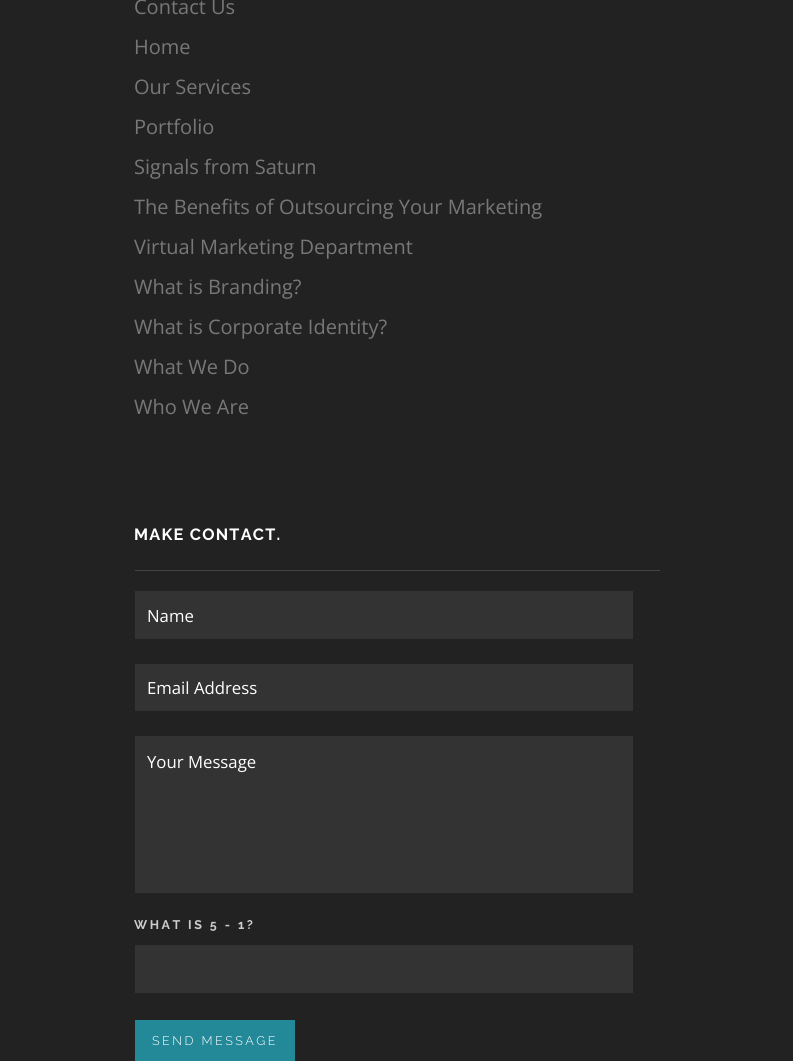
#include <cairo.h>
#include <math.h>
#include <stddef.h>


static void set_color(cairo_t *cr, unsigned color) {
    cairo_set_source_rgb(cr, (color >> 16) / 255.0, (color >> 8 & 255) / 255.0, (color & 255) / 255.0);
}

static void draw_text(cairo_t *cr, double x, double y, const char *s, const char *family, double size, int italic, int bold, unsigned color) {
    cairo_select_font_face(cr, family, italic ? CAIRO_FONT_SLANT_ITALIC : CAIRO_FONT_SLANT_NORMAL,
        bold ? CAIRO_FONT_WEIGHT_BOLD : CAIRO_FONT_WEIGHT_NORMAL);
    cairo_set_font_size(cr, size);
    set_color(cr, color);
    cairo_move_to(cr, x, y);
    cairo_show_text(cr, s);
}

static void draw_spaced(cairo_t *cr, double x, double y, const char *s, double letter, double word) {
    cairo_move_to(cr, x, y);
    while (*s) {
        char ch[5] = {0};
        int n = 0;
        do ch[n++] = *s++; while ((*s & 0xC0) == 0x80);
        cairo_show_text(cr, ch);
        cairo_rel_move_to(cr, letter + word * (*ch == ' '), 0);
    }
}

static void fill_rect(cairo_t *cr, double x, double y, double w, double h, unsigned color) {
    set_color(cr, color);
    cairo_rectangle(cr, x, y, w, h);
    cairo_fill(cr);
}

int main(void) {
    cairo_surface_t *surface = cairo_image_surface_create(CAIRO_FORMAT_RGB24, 793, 1061);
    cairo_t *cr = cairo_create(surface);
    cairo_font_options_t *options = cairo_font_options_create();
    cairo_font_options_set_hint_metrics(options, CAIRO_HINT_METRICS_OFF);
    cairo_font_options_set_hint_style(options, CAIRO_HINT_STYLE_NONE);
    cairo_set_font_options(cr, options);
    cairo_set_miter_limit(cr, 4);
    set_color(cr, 0x222222);
    cairo_paint(cr);
    draw_text(cr, 134, 14, "Contact Us", "Open Sans", 20, 0, 0, 0x777777);
    draw_text(cr, 134, 54, "Home", "Open Sans", 20, 0, 0, 0x777777);
    draw_text(cr, 134, 94, "Our Services", "Open Sans", 20, 0, 0, 0x777777);
    draw_text(cr, 134, 134, "Portfolio", "Open Sans", 20, 0, 0, 0x777777);
    draw_text(cr, 134, 174, "Signals from Saturn", "Open Sans", 20, 0, 0, 0x777777);
    draw_text(cr, 134, 214, "The Benefits of Outsourcing Your Marketing", "Open Sans", 20, 0, 0, 0x777777);
    draw_text(cr, 134, 254, "Virtual Marketing Department", "Open Sans", 20, 0, 0, 0x777777);
    draw_text(cr, 134, 294, "What is Branding?", "Open Sans", 20, 0, 0, 0x777777);
    draw_text(cr, 134, 334, "What is Corporate Identity?", "Open Sans", 20, 0, 0, 0x777777);
    draw_text(cr, 134, 374, "What We Do", "Open Sans", 20, 0, 0, 0x777777);
    draw_text(cr, 134, 414, "Who We Are", "Open Sans", 20, 0, 0, 0x777777);
    fill_rect(cr, 135, 570, 525, 1, 0x444444);
    cairo_select_font_face(cr, "Raleway", CAIRO_FONT_SLANT_NORMAL, CAIRO_FONT_WEIGHT_BOLD);
    cairo_set_font_size(cr, 16.25);
    set_color(cr, 0xFFFFFF);
    draw_spaced(cr, 134, 540, "MAKE CONTACT.", 1.25, 0);
    fill_rect(cr, 135, 591, 498, 48, 0x333333);
    draw_text(cr, 147, 622, "Name", "Open Sans", 16.75, 0, 0, 0xFFFFFF);
    fill_rect(cr, 135, 664, 498, 47, 0x333333);
    draw_text(cr, 147, 694, "Email Address", "Open Sans", 16.75, 0, 0, 0xFFFFFF);
    fill_rect(cr, 135, 736, 498, 157, 0x333333);
    draw_text(cr, 147, 768, "Your Message", "Open Sans", 16.75, 0, 0, 0xFFFFFF);
    cairo_select_font_face(cr, "Raleway", CAIRO_FONT_SLANT_NORMAL, CAIRO_FONT_WEIGHT_BOLD);
    cairo_set_font_size(cr, 12.5);
    set_color(cr, 0xCCCCCC);
    draw_spaced(cr, 134, 929, "WHAT IS 5 - 1?", 2.5, 0);
    fill_rect(cr, 135, 945, 498, 48, 0x333333);
    fill_rect(cr, 135, 1020, 160, 41, 0x238998);
    cairo_select_font_face(cr, "Raleway Light", CAIRO_FONT_SLANT_NORMAL, CAIRO_FONT_WEIGHT_NORMAL);
    set_color(cr, 0xFFFFFF);
    draw_spaced(cr, 152, 1045, "SEND MESSAGE", 2.5, 0);
    cairo_surface_write_to_png(surface, "output.png");
    cairo_font_options_destroy(options);
    cairo_destroy(cr);
    cairo_surface_destroy(surface);
    return 0;
}
